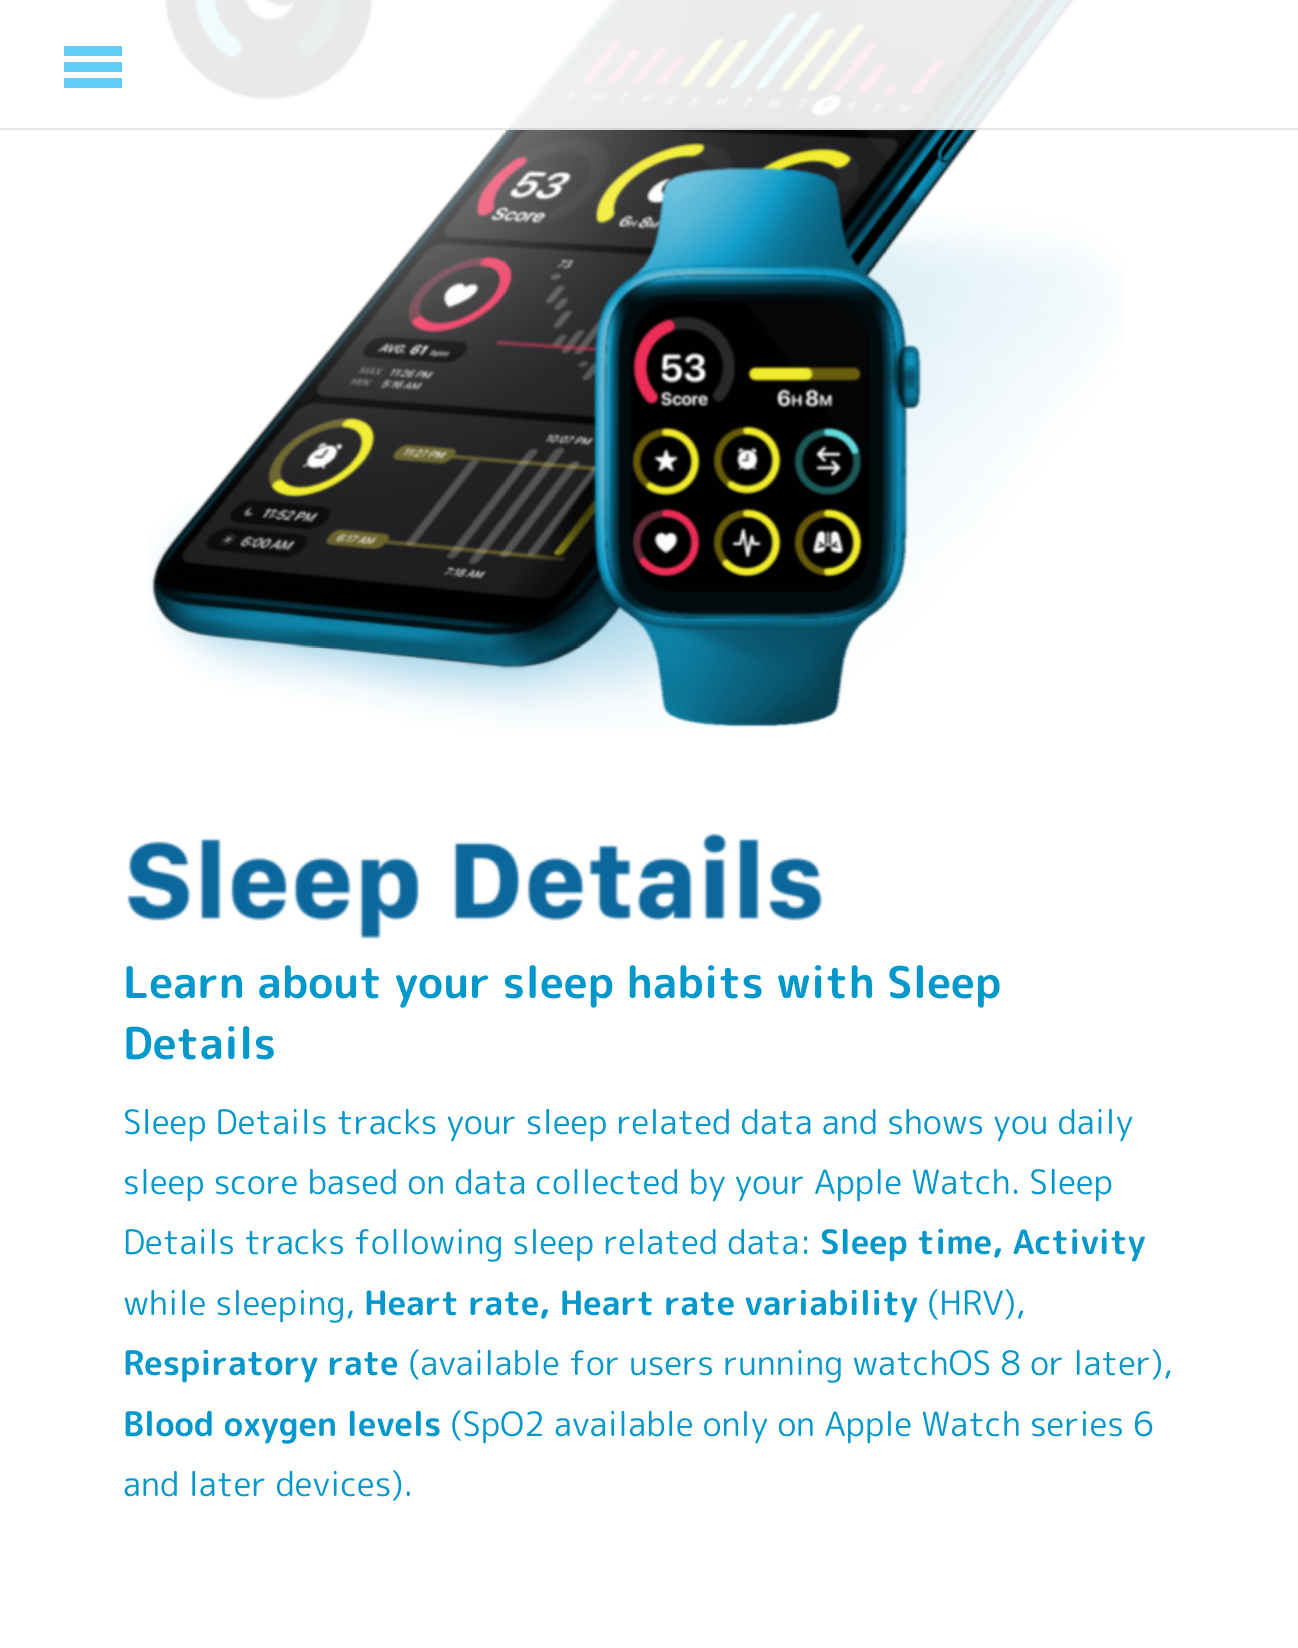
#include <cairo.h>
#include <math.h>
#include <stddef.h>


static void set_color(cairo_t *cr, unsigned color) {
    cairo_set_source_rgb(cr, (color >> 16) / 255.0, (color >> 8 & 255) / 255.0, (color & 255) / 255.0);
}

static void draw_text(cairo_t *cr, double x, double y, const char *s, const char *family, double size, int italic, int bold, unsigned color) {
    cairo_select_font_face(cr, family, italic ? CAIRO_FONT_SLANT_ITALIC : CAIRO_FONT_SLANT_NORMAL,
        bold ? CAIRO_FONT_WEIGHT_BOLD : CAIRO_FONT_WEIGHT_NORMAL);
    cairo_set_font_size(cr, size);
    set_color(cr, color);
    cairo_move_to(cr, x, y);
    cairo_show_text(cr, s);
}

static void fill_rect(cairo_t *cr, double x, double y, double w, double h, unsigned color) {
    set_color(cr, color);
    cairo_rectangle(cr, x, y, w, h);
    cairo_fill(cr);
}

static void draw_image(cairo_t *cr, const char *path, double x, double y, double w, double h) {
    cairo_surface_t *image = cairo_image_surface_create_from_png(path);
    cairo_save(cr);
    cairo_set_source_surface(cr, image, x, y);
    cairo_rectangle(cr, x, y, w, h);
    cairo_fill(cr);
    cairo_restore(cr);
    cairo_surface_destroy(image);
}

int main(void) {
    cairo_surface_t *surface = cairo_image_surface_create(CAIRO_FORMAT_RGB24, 1298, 1648);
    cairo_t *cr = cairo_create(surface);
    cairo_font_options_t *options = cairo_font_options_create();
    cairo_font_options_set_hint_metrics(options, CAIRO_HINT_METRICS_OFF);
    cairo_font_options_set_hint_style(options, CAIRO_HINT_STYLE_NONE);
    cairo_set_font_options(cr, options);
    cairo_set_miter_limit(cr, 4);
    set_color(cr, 0xFFFFFF);
    cairo_paint(cr);
    draw_image(cr, "assets/img1.png", 147, 0, 976, 729);
    cairo_set_source_rgba(cr, 1, 1, 1, 0.9);
    cairo_rectangle(cr, 163, 0, 913, 130);
    cairo_fill(cr);
    cairo_set_source_rgba(cr, 0, 0, 0, 0.1);
    cairo_rectangle(cr, 0, 128, 1298, 2);
    cairo_fill(cr);
    fill_rect(cr, 64, 78, 58, 10, 0x60CCF7);
    fill_rect(cr, 64, 46, 58, 10, 0x60CCF7);
    fill_rect(cr, 64, 62, 58, 10, 0x60CCF7);
    draw_image(cr, "assets/img2.png", 127, 833, 696, 106);
    draw_text(cr, 123, 998, "Learn about your sleep habits with Sleep", "Rounded Mplus 1c Bold", 43.7, 0, 1, 0x0298CC);
    draw_text(cr, 123, 1059, "Details", "Rounded Mplus 1c Bold", 43.7, 0, 1, 0x0298CC);
    draw_text(cr, 123, 1134, "Sleep Details tracks your sleep related data and shows you daily", "Rounded Mplus 1c", 33.6, 0, 0, 0x0298CC);
    draw_text(cr, 123, 1194, "sleep score based on data collected by your Apple Watch. Sleep", "Rounded Mplus 1c", 33.6, 0, 0, 0x0298CC);
    draw_text(cr, 123, 1254, "Details tracks following sleep related data:", "Rounded Mplus 1c", 33.6, 0, 0, 0x0298CC);
    draw_text(cr, 820, 1254, "Sleep time, Activity", "Rounded Mplus 1c Bold", 33.6, 0, 1, 0x0298CC);
    draw_text(cr, 123, 1315, "while sleeping,", "Rounded Mplus 1c", 33.6, 0, 0, 0x0298CC);
    draw_text(cr, 364, 1315, "Heart rate, Heart rate variability", "Rounded Mplus 1c Bold", 33.6, 0, 1, 0x0298CC);
    draw_text(cr, 927, 1315, "(HRV),", "Rounded Mplus 1c", 33.6, 0, 0, 0x0298CC);
    draw_text(cr, 123, 1375, "Respiratory rate", "Rounded Mplus 1c Bold", 33.6, 0, 1, 0x0298CC);
    draw_text(cr, 408, 1375, "(available for users running watchOS 8 or later),", "Rounded Mplus 1c", 33.6, 0, 0, 0x0298CC);
    draw_text(cr, 123, 1436, "Blood oxygen levels", "Rounded Mplus 1c Bold", 33.6, 0, 1, 0x0298CC);
    draw_text(cr, 450, 1436, "(SpO2 available only on Apple Watch series 6", "Rounded Mplus 1c", 33.6, 0, 0, 0x0298CC);
    draw_text(cr, 123, 1496, "and later devices).", "Rounded Mplus 1c", 33.6, 0, 0, 0x0298CC);
    cairo_surface_write_to_png(surface, "output.png");
    cairo_font_options_destroy(options);
    cairo_destroy(cr);
    cairo_surface_destroy(surface);
    return 0;
}
